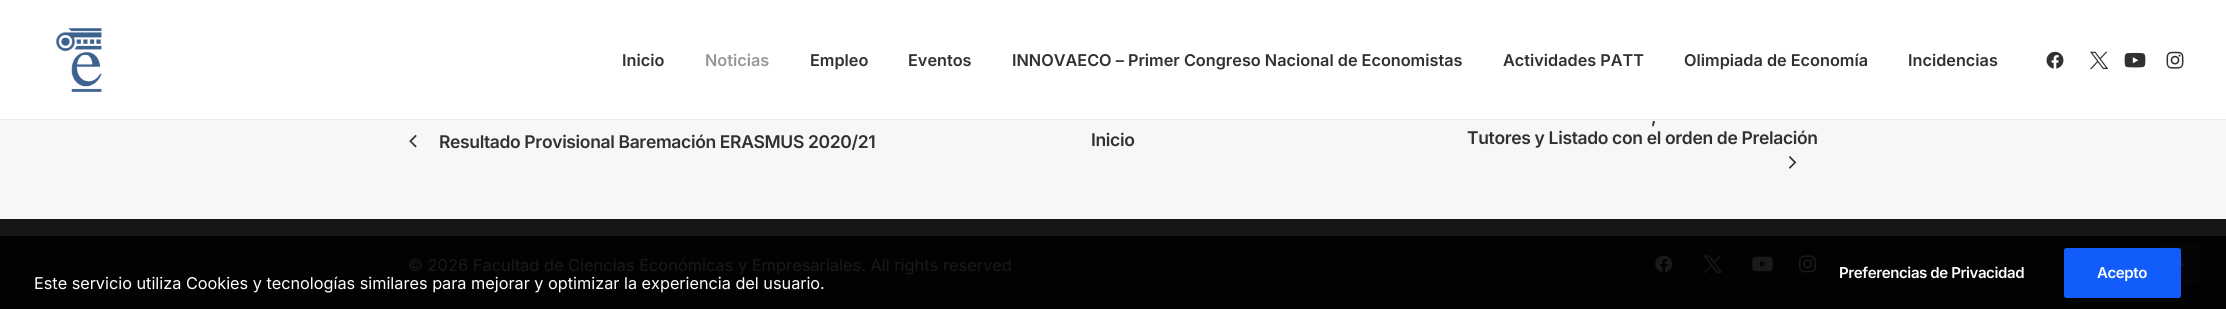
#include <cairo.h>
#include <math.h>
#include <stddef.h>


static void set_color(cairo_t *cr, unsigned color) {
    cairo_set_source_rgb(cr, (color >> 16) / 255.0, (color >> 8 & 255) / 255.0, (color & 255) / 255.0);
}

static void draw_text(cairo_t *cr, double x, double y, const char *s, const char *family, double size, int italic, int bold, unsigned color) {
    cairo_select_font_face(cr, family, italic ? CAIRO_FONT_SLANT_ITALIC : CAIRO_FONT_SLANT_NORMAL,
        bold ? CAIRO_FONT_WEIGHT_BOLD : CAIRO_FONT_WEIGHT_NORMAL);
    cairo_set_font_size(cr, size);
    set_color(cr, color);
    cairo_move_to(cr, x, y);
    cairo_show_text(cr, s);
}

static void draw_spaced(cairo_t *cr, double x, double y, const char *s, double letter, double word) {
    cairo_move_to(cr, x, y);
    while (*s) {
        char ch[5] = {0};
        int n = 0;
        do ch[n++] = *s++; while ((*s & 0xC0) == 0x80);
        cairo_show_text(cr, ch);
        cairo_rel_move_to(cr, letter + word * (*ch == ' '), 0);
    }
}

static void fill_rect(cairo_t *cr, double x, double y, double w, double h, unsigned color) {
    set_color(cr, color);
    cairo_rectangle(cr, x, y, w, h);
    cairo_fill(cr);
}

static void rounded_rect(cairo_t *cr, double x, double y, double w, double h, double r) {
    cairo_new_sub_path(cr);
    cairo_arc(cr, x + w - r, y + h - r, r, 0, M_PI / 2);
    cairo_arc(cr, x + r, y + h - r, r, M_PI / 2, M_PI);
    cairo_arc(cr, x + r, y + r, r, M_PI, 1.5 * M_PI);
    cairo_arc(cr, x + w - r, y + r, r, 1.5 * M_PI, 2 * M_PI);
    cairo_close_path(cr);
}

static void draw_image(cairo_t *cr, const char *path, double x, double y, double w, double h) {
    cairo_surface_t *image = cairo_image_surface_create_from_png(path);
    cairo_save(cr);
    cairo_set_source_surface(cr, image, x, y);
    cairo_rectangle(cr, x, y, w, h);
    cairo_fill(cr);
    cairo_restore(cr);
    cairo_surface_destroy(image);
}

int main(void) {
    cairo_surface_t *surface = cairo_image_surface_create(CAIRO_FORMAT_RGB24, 2226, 309);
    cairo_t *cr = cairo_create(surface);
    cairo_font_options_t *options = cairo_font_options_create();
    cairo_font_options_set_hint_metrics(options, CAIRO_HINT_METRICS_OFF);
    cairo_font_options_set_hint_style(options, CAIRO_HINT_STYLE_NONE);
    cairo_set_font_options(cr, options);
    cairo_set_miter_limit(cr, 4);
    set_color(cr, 0x141618);
    cairo_paint(cr);
    fill_rect(cr, 0, 236, 2226, 73, 0x020202);
    fill_rect(cr, 0, 0, 2226, 119, 0xFFFFFF);
    draw_image(cr, "assets/img1.png", 56, 28, 46, 64);
    draw_text(cr, 622, 66, "Inicio", "Inter SemiBold", 16.25, 0, 0, 0x303133);
    draw_text(cr, 705, 66, "Noticias", "Inter SemiBold", 16.25, 0, 0, 0x989899);
    draw_text(cr, 810, 66, "Empleo", "Inter SemiBold", 16.25, 0, 0, 0x303133);
    draw_text(cr, 908, 66, "Eventos", "Inter SemiBold", 16.25, 0, 0, 0x303133);
    draw_text(cr, 1012, 66, "INNOVAECO – Primer Congreso Nacional de Economistas", "Inter SemiBold", 16.25, 0, 0, 0x303133);
    draw_text(cr, 1503, 66, "Actividades PATT", "Inter SemiBold", 16.25, 0, 0, 0x303133);
    draw_text(cr, 1684, 66, "Olimpiada de Economía", "Inter SemiBold", 16.25, 0, 0, 0x303133);
    draw_text(cr, 1908, 66, "Incidencias", "Inter SemiBold", 16.25, 0, 0, 0x303133);
    draw_image(cr, "assets/img2.png", 2046, 51, 18, 18);
    draw_image(cr, "assets/img3.png", 2090, 51, 19, 18);
    draw_image(cr, "assets/img4.png", 2124, 52, 22, 16);
    draw_image(cr, "assets/img5.png", 2166, 51, 18, 18);
    fill_rect(cr, 0, 119, 2226, 1, 0xEBEBEB);
    fill_rect(cr, 0, 120, 2226, 99, 0xF7F7F7);
    draw_image(cr, "assets/img6.png", 409, 134, 8, 14);
    cairo_set_font_size(cr, 17.5);
    set_color(cr, 0x303133);
    draw_spaced(cr, 439, 148, "Resultado Provisional Baremación ERASMUS 2020/21", -0.35, 0);
    draw_spaced(cr, 1091, 146, "Inicio", -0.35, 0);
    draw_spaced(cr, 1651, 123, ",", -0.35, 0);
    draw_spaced(cr, 1467, 144, "Tutores y Listado con el orden de Prelación", -0.35, 0);
    draw_image(cr, "assets/img7.png", 1788, 156, 9, 13);
    draw_text(cr, 408, 271, "© 2026 Facultad de Ciencias Económicas y Empresariales. All rights reserved", "Inter", 16.4, 0, 0, 0x191919);
    draw_image(cr, "assets/img8.png", 1655, 255, 18, 18);
    draw_image(cr, "assets/img9.png", 1703, 255, 19, 18);
    draw_image(cr, "assets/img10.png", 1752, 256, 21, 16);
    draw_image(cr, "assets/img11.png", 1799, 255, 17, 18);
    set_color(cr, 0x050505);
    rounded_rect(cr, 2159, 243, 40, 40, 2.5);
    cairo_fill(cr);
    draw_image(cr, "assets/img12.png", 2181, 262, 3, 4);
    cairo_select_font_face(cr, "Inter SemiBold", CAIRO_FONT_SLANT_NORMAL, CAIRO_FONT_WEIGHT_NORMAL);
    cairo_set_font_size(cr, 15);
    set_color(cr, 0xFFFFFF);
    draw_spaced(cr, 1839, 278, "Preferencias de Privacidad", -0.4, 0);
    set_color(cr, 0x115CFA);
    rounded_rect(cr, 2064, 248, 117, 50, 2.5);
    cairo_fill(cr);
    set_color(cr, 0xFFFFFF);
    draw_spaced(cr, 2097, 278, "Acepto", -0.4, 0);
    draw_text(cr, 34, 289, "Este servicio utiliza Cookies y tecnologías similares para mejorar y optimizar la experiencia del usuario.", "Inter", 16.25, 0, 0, 0xFFFFFF);
    cairo_surface_write_to_png(surface, "output.png");
    cairo_font_options_destroy(options);
    cairo_destroy(cr);
    cairo_surface_destroy(surface);
    return 0;
}
